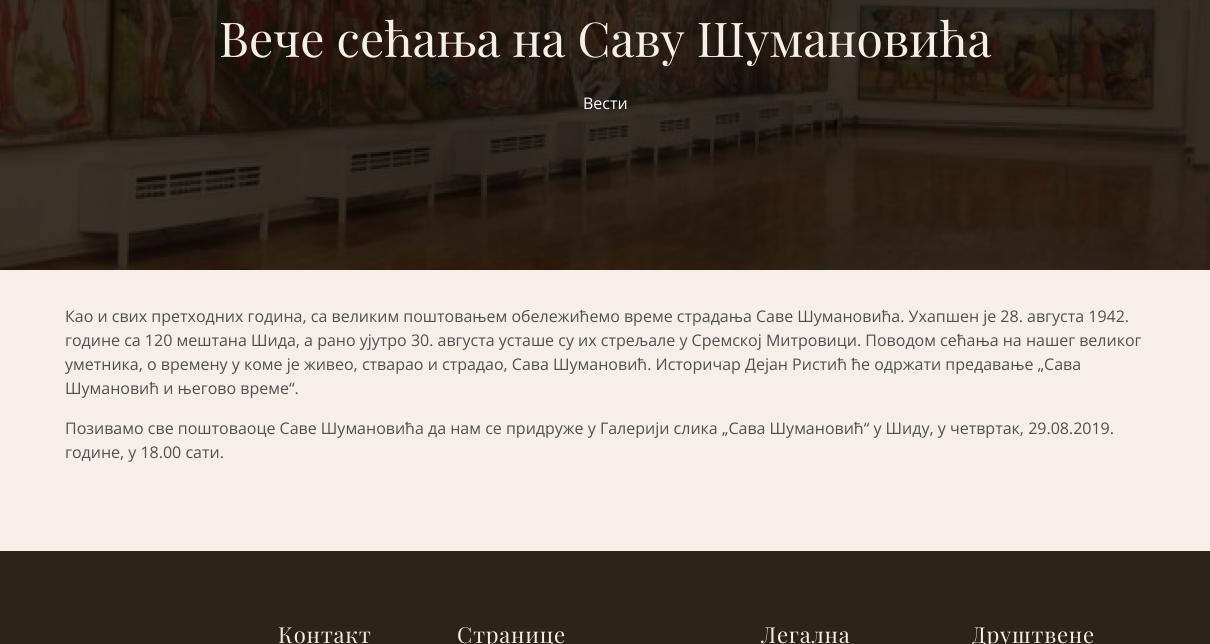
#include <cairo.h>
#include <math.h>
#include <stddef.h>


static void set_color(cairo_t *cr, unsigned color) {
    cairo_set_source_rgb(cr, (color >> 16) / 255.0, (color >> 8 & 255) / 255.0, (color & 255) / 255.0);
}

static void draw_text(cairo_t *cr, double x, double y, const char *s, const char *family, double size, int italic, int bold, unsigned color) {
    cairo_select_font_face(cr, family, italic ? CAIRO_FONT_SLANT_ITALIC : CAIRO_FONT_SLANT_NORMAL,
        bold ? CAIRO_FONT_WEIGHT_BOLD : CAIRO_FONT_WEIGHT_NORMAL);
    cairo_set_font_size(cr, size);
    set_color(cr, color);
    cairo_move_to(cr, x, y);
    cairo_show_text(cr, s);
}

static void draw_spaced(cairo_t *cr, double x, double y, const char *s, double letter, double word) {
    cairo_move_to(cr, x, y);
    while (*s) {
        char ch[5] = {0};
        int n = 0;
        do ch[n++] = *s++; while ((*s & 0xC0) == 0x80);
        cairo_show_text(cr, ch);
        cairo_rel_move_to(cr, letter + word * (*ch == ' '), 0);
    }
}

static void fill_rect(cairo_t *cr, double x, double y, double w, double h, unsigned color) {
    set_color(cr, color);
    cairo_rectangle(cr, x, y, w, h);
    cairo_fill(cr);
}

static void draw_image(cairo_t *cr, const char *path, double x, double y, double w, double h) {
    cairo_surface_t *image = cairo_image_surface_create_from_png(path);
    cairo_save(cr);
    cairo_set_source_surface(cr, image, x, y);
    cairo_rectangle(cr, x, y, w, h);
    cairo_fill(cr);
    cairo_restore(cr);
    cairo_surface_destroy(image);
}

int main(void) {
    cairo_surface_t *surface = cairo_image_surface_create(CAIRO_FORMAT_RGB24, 1210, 644);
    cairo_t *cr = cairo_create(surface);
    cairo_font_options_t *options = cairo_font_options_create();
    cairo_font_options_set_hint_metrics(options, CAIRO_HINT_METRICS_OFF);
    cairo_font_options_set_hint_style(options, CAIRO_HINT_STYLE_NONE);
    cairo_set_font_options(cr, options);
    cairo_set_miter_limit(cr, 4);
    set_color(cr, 0xF5EFE8);
    cairo_paint(cr);
    draw_image(cr, "assets/img1.png", 0, 0, 1210, 270);
    draw_text(cr, 219, 57, "Вече сећања на Саву Шумановића", "Playfair Display", 48, 0, 0, 0xF5EFE8);
    draw_text(cr, 583, 109, "Вести", "Open Sans", 16, 0, 0, 0xFFFFFF);
    draw_text(cr, 65, 322, "Као и свих претходних година, са великим поштовањем обележићемо време страдања Саве Шумановића. Ухапшен је 28. августа 1942.", "Open Sans", 16, 0, 0, 0x505050);
    draw_text(cr, 65, 346, "године са 120 мештана Шида, а рано ујутро 30. августа усташе су их стрељале у Сремској Митровици. Поводом сећања на нашег великог", "Open Sans", 16, 0, 0, 0x505050);
    draw_text(cr, 65, 370, "уметника, о времену у коме је живео, стварао и страдао, Сава Шумановић. Историчар Дејан Ристић ће одржати предавање „Сава", "Open Sans", 16, 0, 0, 0x505050);
    draw_text(cr, 65, 394, "Шумановић и његово време“.", "Open Sans", 16, 0, 0, 0x505050);
    draw_text(cr, 65, 434, "Позивамо све поштоваоце Саве Шумановића да нам се придруже у Галерији слика „Сава Шумановић“ у Шиду, у четвртак, 29.08.2019.", "Open Sans", 16, 0, 0, 0x505050);
    draw_text(cr, 65, 458, "године, у 18.00 сати.", "Open Sans", 16, 0, 0, 0x505050);
    fill_rect(cr, 0, 551, 1210, 93, 0x2C2419);
    cairo_select_font_face(cr, "Playfair Display", CAIRO_FONT_SLANT_NORMAL, CAIRO_FONT_WEIGHT_NORMAL);
    cairo_set_font_size(cr, 22);
    set_color(cr, 0xF5EFE8);
    draw_spaced(cr, 278, 643, "Контакт", 0.75, 0);
    draw_spaced(cr, 457, 643, "Странице", 0.75, 0);
    draw_spaced(cr, 761, 643, "Легална", 0.75, 0);
    draw_spaced(cr, 972, 643, "Друштвене", 0.75, 0);
    cairo_surface_write_to_png(surface, "output.png");
    cairo_font_options_destroy(options);
    cairo_destroy(cr);
    cairo_surface_destroy(surface);
    return 0;
}
